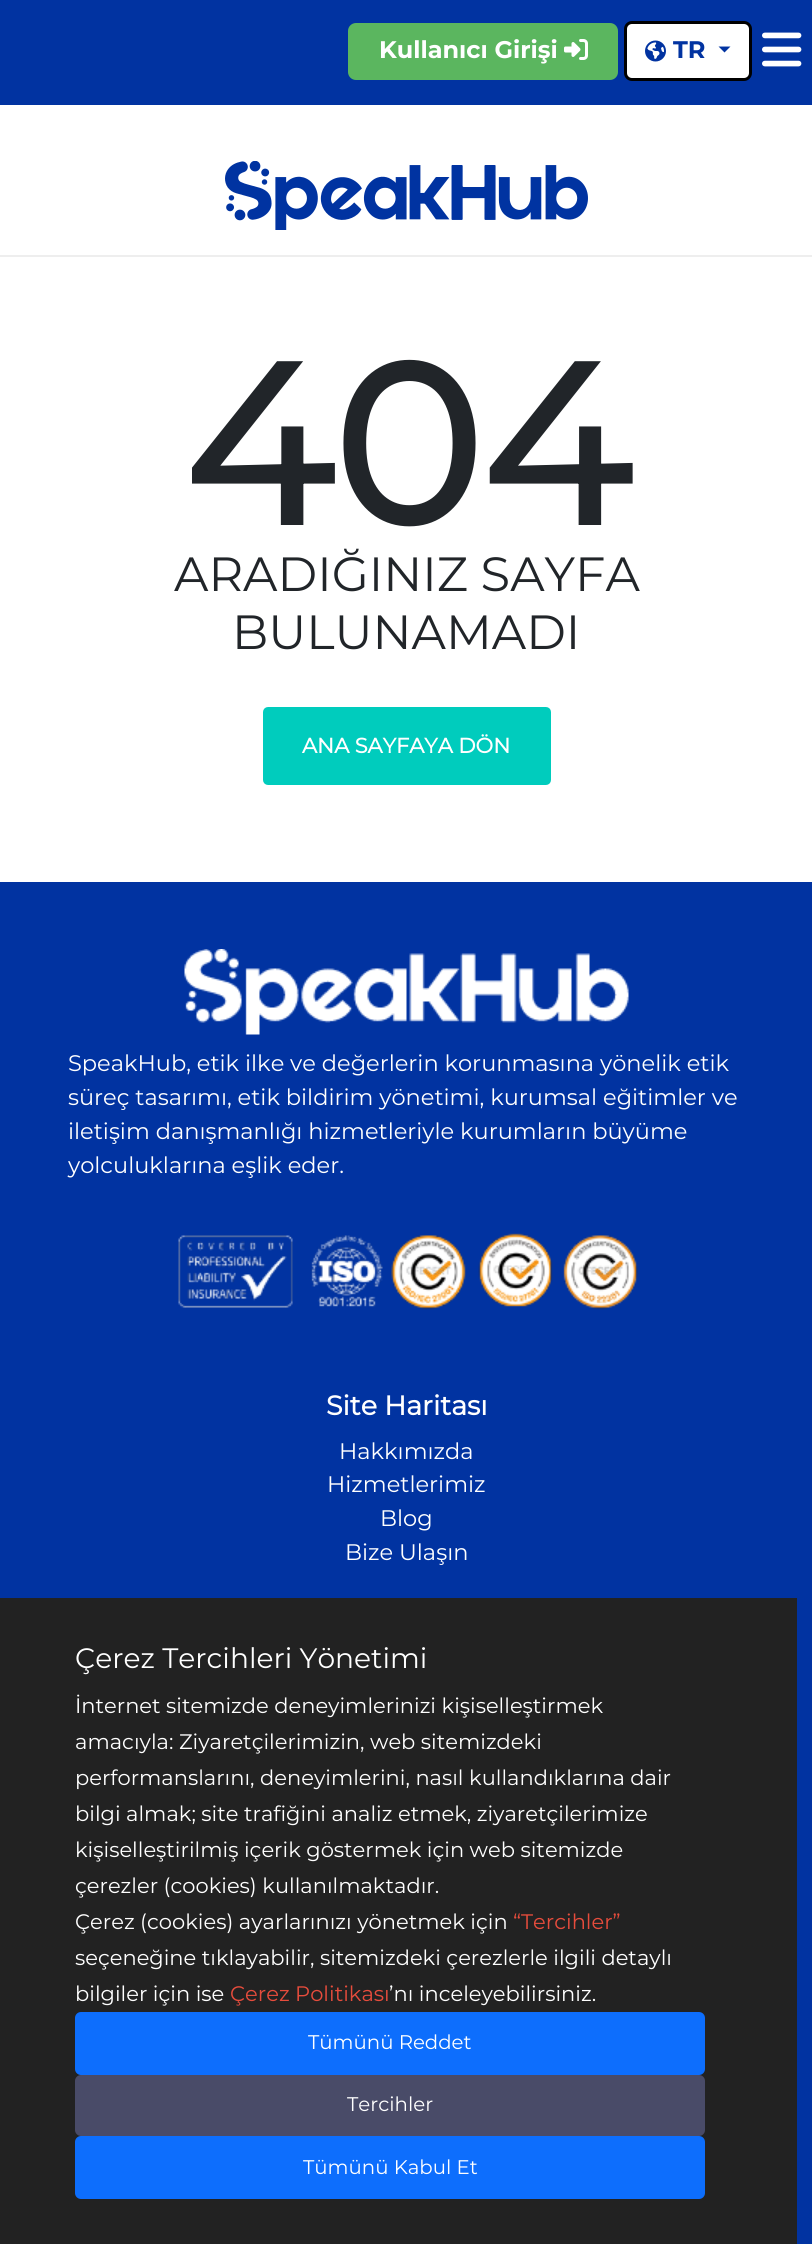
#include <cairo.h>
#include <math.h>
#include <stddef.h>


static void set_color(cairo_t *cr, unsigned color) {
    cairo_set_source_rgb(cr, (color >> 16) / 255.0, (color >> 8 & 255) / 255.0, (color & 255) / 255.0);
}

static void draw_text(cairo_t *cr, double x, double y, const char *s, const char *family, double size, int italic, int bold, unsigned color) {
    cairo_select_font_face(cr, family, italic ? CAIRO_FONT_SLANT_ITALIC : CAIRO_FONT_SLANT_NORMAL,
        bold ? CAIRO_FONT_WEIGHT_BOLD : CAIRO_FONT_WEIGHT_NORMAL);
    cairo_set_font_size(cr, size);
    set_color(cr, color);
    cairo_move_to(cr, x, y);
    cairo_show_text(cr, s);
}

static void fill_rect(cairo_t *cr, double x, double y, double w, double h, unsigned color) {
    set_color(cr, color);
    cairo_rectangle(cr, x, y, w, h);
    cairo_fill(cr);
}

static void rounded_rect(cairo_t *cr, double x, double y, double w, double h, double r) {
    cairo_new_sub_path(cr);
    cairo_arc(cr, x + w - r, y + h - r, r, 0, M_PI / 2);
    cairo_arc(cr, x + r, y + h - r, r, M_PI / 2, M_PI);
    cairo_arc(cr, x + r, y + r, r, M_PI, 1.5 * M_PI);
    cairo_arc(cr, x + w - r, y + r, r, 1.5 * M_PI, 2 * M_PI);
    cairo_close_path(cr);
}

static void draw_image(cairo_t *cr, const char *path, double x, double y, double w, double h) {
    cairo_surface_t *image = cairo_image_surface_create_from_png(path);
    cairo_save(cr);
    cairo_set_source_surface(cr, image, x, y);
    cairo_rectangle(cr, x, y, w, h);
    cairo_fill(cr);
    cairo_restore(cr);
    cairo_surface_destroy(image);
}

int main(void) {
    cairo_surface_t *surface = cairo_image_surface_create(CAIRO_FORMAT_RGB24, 812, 2244);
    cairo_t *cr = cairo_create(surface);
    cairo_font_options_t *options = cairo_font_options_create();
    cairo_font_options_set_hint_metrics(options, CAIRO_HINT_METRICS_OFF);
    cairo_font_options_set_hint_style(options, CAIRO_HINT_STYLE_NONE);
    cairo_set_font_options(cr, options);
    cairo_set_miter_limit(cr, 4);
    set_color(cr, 0xFFFFFF);
    cairo_paint(cr);
    fill_rect(cr, 0, 255, 812, 2, 0xEEEEEE);
    fill_rect(cr, 0, 0, 812, 105, 0x0133A1);
    set_color(cr, 0x5BB65F);
    rounded_rect(cr, 348, 23, 270, 57, 8);
    cairo_fill(cr);
    draw_text(cr, 379, 58, "Kullanıcı Girişi", "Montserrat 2", 24, 0, 1, 0xFFFFFF);
    draw_image(cr, "assets/img1.png", 564, 39, 24, 21);
    rounded_rect(cr, 625.5, 22.5, 125, 57, 6.5);
    cairo_fill_preserve(cr);
    set_color(cr, 0x000000);
    cairo_set_line_width(cr, 3);
    cairo_stroke(cr);
    draw_image(cr, "assets/img2.png", 645, 40, 21, 22);
    draw_text(cr, 673, 58, "TR", "Montserrat 2", 24, 0, 1, 0x0133A1);
    cairo_new_path(cr);
    cairo_move_to(cr, 718.5, 46.5);
    cairo_line_to(cr, 730.5, 46.5);
    cairo_line_to(cr, 724.5, 52.5);
    cairo_close_path(cr);
    cairo_fill(cr);
    draw_image(cr, "assets/img3.png", 762, 32, 40, 35);
    draw_image(cr, "assets/img4.png", 225, 161, 363, 69);
    draw_text(cr, 183, 525, "404", "Montserrat", 225, 0, 1, 0x212529);
    draw_text(cr, 174, 591, "ARADIĞINIZ SAYFA", "Montserrat", 48, 0, 0, 0x212529);
    draw_text(cr, 232, 649, "BULUNAMADI", "Montserrat", 48, 0, 0, 0x212529);
    set_color(cr, 0x00CCBD);
    rounded_rect(cr, 264.5, 708.5, 285, 75, 3.5);
    cairo_fill_preserve(cr);
    cairo_stroke(cr);
    draw_text(cr, 302, 753, "ANA SAYFAYA DÖN", "Montserrat", 21, 0, 1, 0xFFFFFF);
    fill_rect(cr, 0, 882, 812, 1362, 0x0133A1);
    draw_image(cr, "assets/img5.png", 184, 949, 445, 86);
    draw_text(cr, 68, 1071, "SpeakHub, etik ilke ve değerlerin korunmasına yönelik etik", "Montserrat", 22.5, 0, 0, 0xFFFFFF);
    draw_text(cr, 68, 1105, "süreç tasarımı, etik bildirim yönetimi, kurumsal eğitimler ve", "Montserrat", 22.5, 0, 0, 0xFFFFFF);
    draw_text(cr, 68, 1139, "iletişim danışmanlığı hizmetleriyle kurumların büyüme", "Montserrat", 22.5, 0, 0, 0xFFFFFF);
    draw_text(cr, 68, 1173, "yolculuklarına eşlik eder.", "Montserrat", 22.5, 0, 0, 0xFFFFFF);
    draw_image(cr, "assets/img6.png", 178, 1233, 460, 77);
    draw_text(cr, 326, 1415, "Site Haritası", "Montserrat", 27, 0, 1, 0xFFFFFF);
    draw_text(cr, 339, 1459, "Hakkımızda", "Montserrat", 22.5, 0, 0, 0xFFFFFF);
    draw_text(cr, 327, 1492, "Hizmetlerimiz", "Montserrat", 22.5, 0, 0, 0xFFFFFF);
    draw_text(cr, 380, 1526, "Blog", "Montserrat", 22.5, 0, 0, 0xFFFFFF);
    draw_text(cr, 345, 1560, "Bize Ulaşın", "Montserrat", 22.5, 0, 0, 0xFFFFFF);
    fill_rect(cr, 0, 1598, 797, 646, 0x222222);
    draw_text(cr, 75, 1668, "Çerez Tercihleri Yönetimi", "Montserrat", 28.1, 0, 0, 0xFFFFFF);
    draw_text(cr, 75, 1713, "İnternet sitemizde deneyimlerinizi kişiselleştirmek", "Montserrat", 21, 0, 0, 0xFFFFFF);
    draw_text(cr, 75, 1749, "amacıyla: Ziyaretçilerimizin, web sitemizdeki", "Montserrat", 21, 0, 0, 0xFFFFFF);
    draw_text(cr, 75, 1785, "performanslarını, deneyimlerini, nasıl kullandıklarına dair", "Montserrat", 21, 0, 0, 0xFFFFFF);
    draw_text(cr, 75, 1821, "bilgi almak; site trafiğini analiz etmek, ziyaretçilerimize", "Montserrat", 21, 0, 0, 0xFFFFFF);
    draw_text(cr, 75, 1857, "kişiselleştirilmiş içerik göstermek için web sitemizde", "Montserrat", 21, 0, 0, 0xFFFFFF);
    draw_text(cr, 75, 1893, "çerezler (cookies) kullanılmaktadır.", "Montserrat", 21, 0, 0, 0xFFFFFF);
    draw_text(cr, 75, 1929, "Çerez (cookies) ayarlarınızı yönetmek için", "Montserrat", 21, 0, 0, 0xFFFFFF);
    draw_text(cr, 513, 1929, "“Tercihler”", "Montserrat", 21, 0, 0, 0xE74C3C);
    draw_text(cr, 75, 1965, "seçeneğine tıklayabilir, sitemizdeki çerezlerle ilgili detaylı", "Montserrat", 21, 0, 0, 0xFFFFFF);
    draw_text(cr, 75, 2001, "bilgiler için ise", "Montserrat", 21, 0, 0, 0xFFFFFF);
    draw_text(cr, 230, 2001, "Çerez Politikası", "Montserrat", 21, 0, 0, 0xE74C3C);
    draw_text(cr, 389, 2001, "’nı inceleyebilirsiniz.", "Montserrat", 21, 0, 0, 0xFFFFFF);
    set_color(cr, 0x0D6EFD);
    rounded_rect(cr, 76, 2013, 628, 61, 5);
    cairo_fill_preserve(cr);
    cairo_set_line_width(cr, 2);
    cairo_stroke(cr);
    draw_text(cr, 308, 2049, "Tümünü Reddet", "Montserrat", 19.75, 0, 0, 0xFFFFFF);
    set_color(cr, 0x494B68);
    rounded_rect(cr, 75, 2075, 630, 61, 6);
    cairo_fill(cr);
    draw_text(cr, 347, 2111, "Tercihler", "Montserrat", 19.75, 0, 0, 0xFFFFFF);
    set_color(cr, 0x0D6EFD);
    rounded_rect(cr, 76, 2137, 628, 61, 5);
    cairo_fill_preserve(cr);
    cairo_stroke(cr);
    draw_text(cr, 303, 2174, "Tümünü Kabul Et", "Montserrat", 19.75, 0, 0, 0xFFFFFF);
    cairo_surface_write_to_png(surface, "output.png");
    cairo_font_options_destroy(options);
    cairo_destroy(cr);
    cairo_surface_destroy(surface);
    return 0;
}
